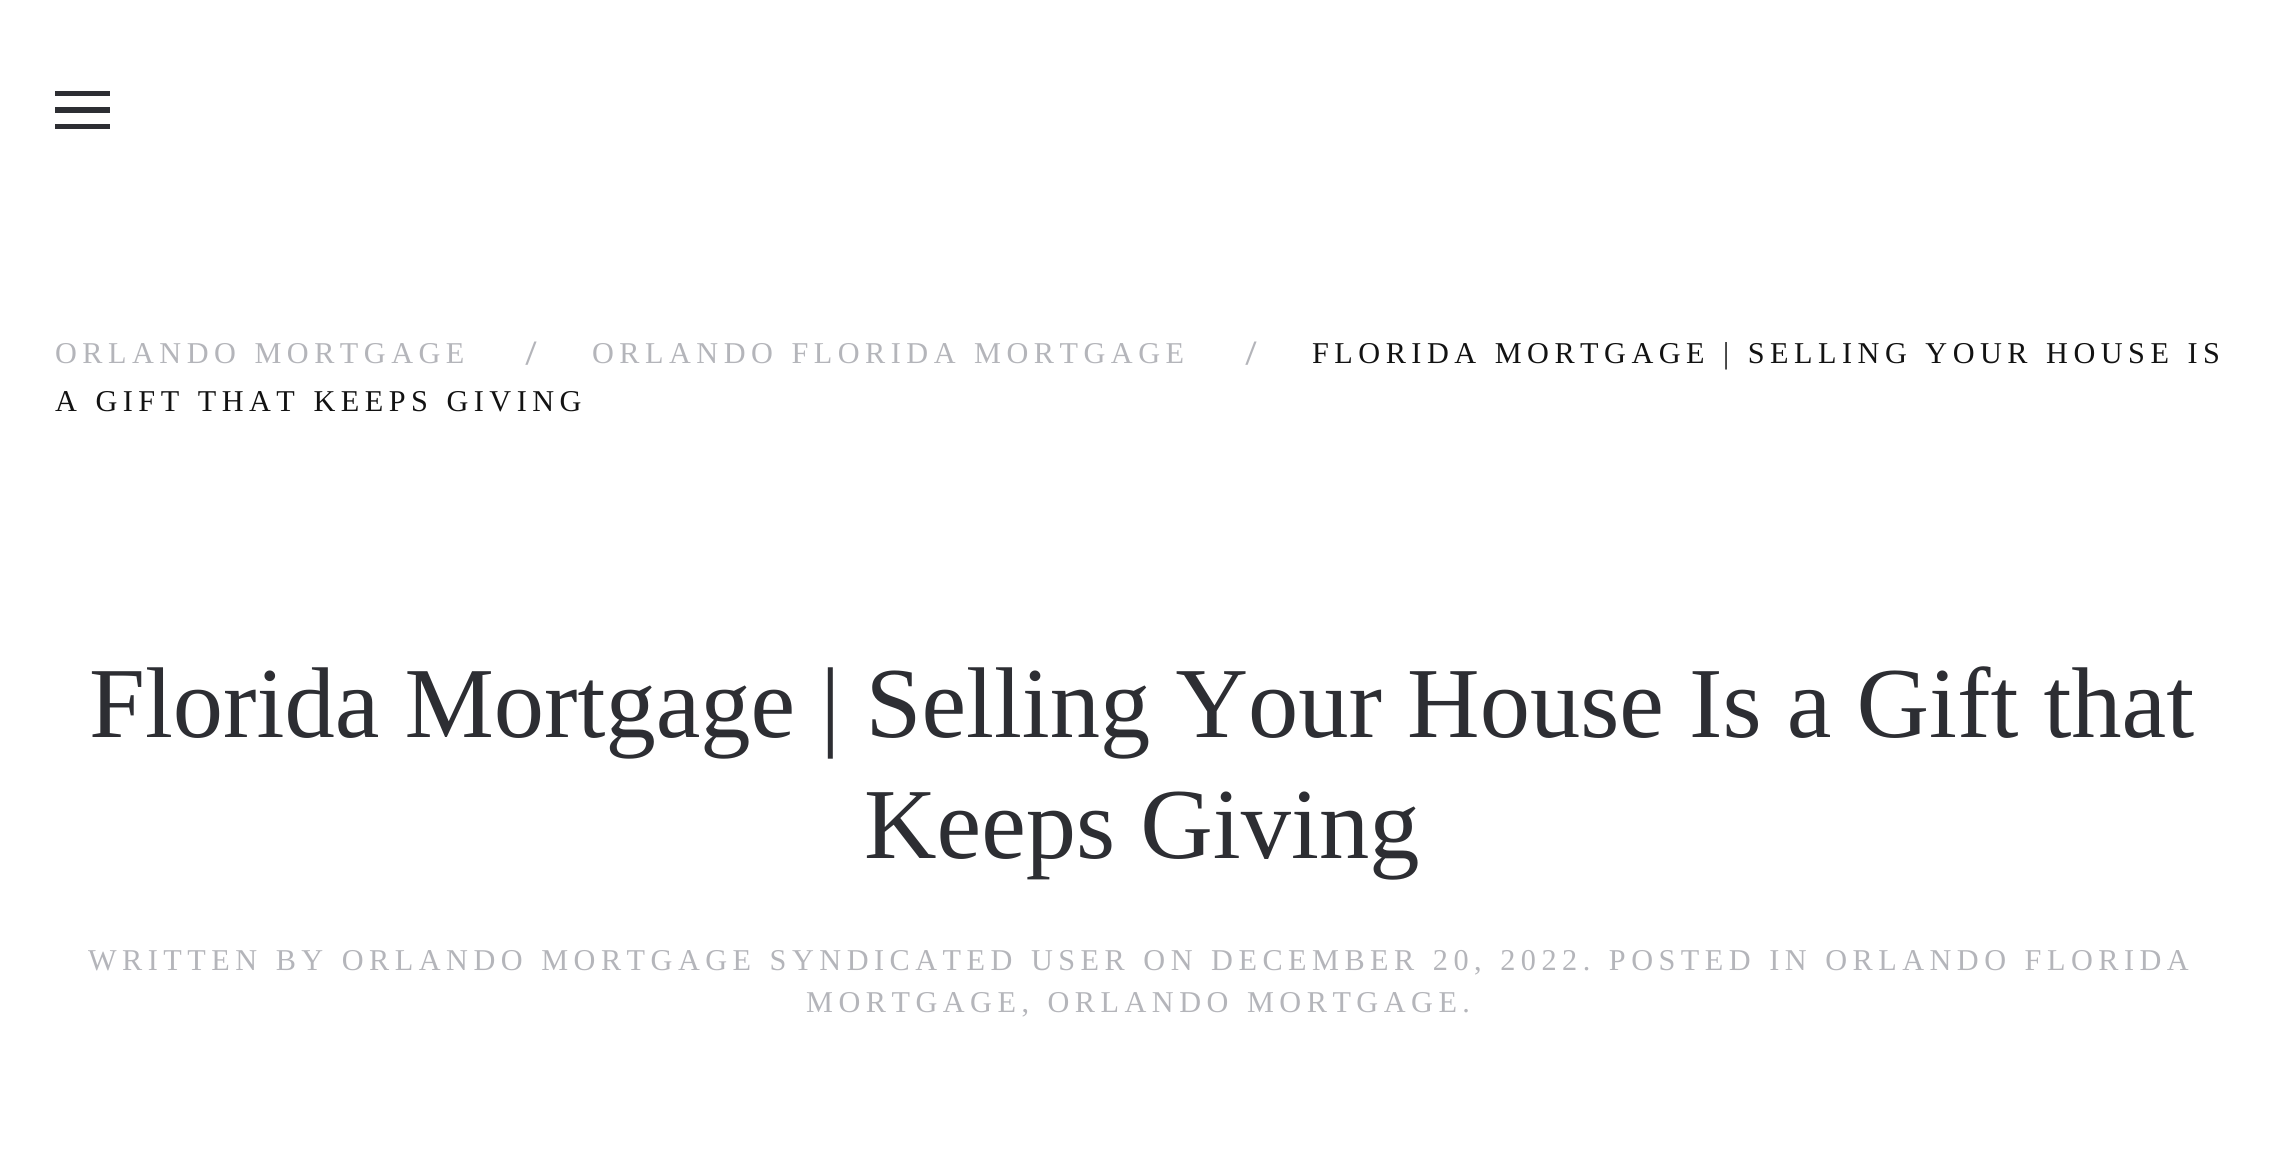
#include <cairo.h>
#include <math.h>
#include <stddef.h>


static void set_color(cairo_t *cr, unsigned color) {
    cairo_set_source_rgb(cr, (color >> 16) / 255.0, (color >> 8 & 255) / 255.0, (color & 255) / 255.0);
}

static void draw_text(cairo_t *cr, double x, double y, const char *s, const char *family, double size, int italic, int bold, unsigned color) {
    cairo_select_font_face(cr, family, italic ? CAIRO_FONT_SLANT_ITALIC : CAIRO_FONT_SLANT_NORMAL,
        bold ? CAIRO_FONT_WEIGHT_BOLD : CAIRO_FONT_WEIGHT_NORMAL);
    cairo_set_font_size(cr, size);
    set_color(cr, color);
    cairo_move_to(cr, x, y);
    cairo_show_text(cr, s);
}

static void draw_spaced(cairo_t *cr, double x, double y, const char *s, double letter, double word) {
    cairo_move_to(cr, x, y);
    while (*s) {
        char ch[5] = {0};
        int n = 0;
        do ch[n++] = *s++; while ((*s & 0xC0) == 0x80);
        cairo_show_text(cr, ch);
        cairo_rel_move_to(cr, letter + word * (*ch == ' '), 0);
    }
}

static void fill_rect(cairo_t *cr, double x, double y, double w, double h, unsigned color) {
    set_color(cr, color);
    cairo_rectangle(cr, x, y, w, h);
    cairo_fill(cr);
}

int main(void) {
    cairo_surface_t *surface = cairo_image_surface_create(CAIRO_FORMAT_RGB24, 2280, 1167);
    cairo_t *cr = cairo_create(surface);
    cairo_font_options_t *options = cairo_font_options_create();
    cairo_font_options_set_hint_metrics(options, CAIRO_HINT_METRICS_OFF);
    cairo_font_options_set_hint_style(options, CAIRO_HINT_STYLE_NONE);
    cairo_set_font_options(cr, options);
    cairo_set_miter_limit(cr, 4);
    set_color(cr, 0xFFFFFF);
    cairo_paint(cr);
    fill_rect(cr, 55, 91, 55, 5, 0x2D2E33);
    fill_rect(cr, 55, 107, 55, 6, 0x2D2E33);
    fill_rect(cr, 55, 124, 55, 5, 0x2D2E33);
    draw_text(cr, 1245, 363, "/", "Roboto", 30.25, 0, 0, 0xB4B5BA);
    cairo_select_font_face(cr, "Liberation Serif", CAIRO_FONT_SLANT_NORMAL, CAIRO_FONT_WEIGHT_NORMAL);
    set_color(cr, 0x121212);
    draw_spaced(cr, 1312, 363, "FLORIDA MORTGAGE | SELLING YOUR HOUSE IS", 5.5, 0);
    draw_spaced(cr, 55, 411, "A GIFT THAT KEEPS GIVING", 5.5, 0);
    set_color(cr, 0xB4B5BA);
    draw_spaced(cr, 55, 363, "ORLANDO MORTGAGE", 5.5, 0);
    draw_text(cr, 525, 363, "/", "Roboto", 30.25, 0, 0, 0xB4B5BA);
    cairo_select_font_face(cr, "Liberation Serif", CAIRO_FONT_SLANT_NORMAL, CAIRO_FONT_WEIGHT_NORMAL);
    draw_spaced(cr, 592, 363, "ORLANDO FLORIDA MORTGAGE", 5.5, 0);
    draw_text(cr, 89, 737, "Florida Mortgage | Selling Your House Is a Gift that", "Liberation Serif", 100.5, 0, 0, 0x2D2E33);
    draw_text(cr, 864, 858, "Keeps Giving", "Liberation Serif", 100.5, 0, 0, 0x2D2E33);
    cairo_set_font_size(cr, 30.25);
    set_color(cr, 0xB4B5BA);
    draw_spaced(cr, 88, 970, "WRITTEN BY ORLANDO MORTGAGE SYNDICATED USER ON DECEMBER 20, 2022. POSTED IN ORLANDO FLORIDA", 5.5, 0);
    draw_spaced(cr, 806, 1012, "MORTGAGE, ORLANDO MORTGAGE.", 5.5, 0);
    cairo_surface_write_to_png(surface, "output.png");
    cairo_font_options_destroy(options);
    cairo_destroy(cr);
    cairo_surface_destroy(surface);
    return 0;
}
